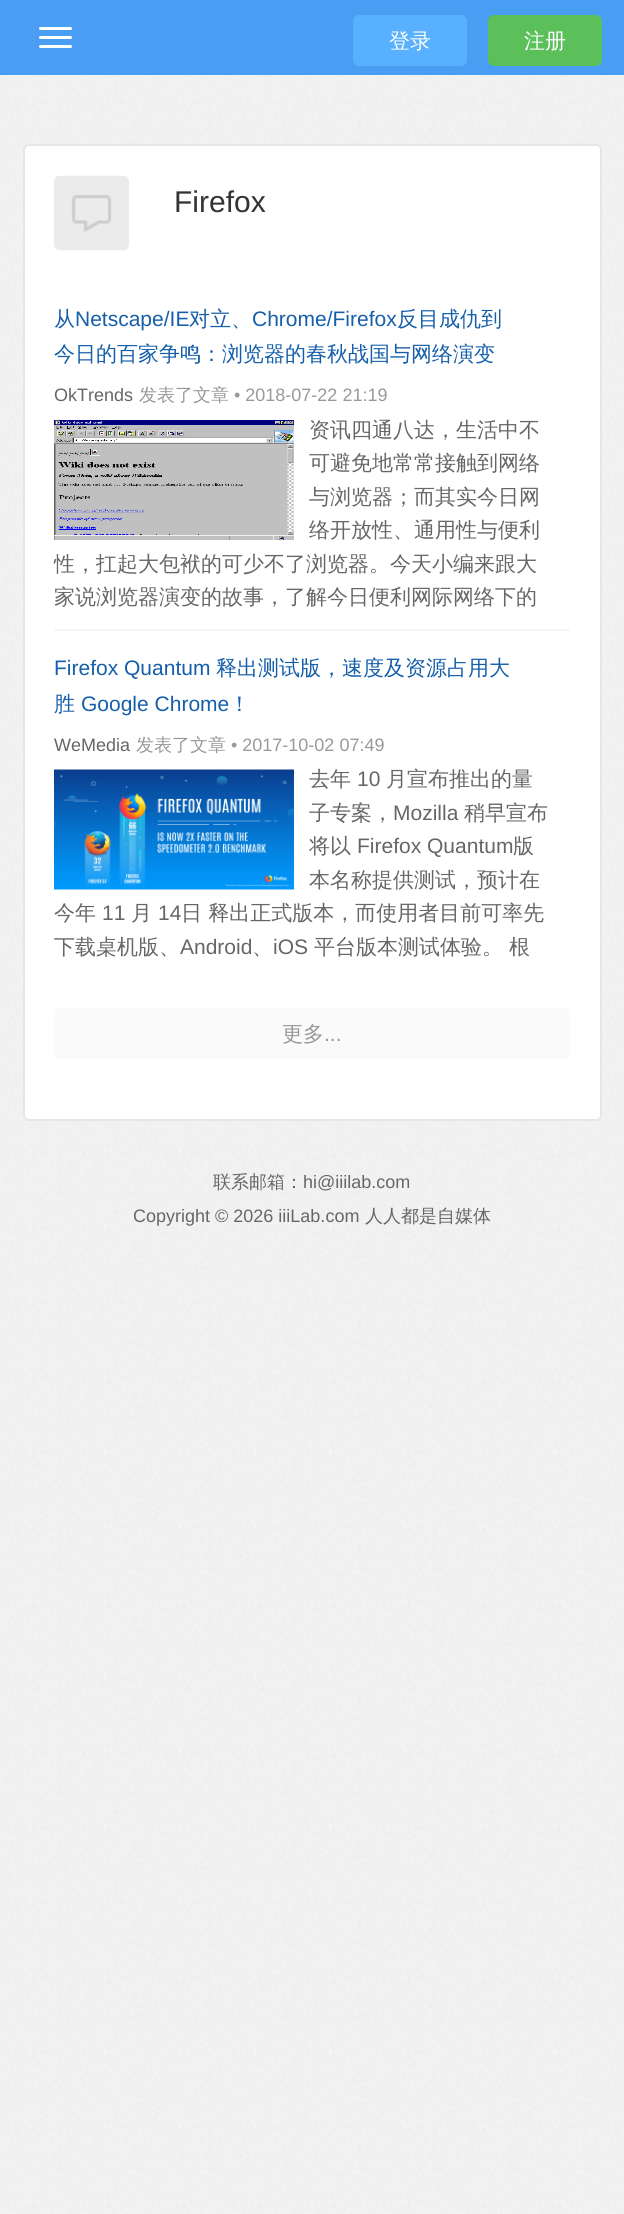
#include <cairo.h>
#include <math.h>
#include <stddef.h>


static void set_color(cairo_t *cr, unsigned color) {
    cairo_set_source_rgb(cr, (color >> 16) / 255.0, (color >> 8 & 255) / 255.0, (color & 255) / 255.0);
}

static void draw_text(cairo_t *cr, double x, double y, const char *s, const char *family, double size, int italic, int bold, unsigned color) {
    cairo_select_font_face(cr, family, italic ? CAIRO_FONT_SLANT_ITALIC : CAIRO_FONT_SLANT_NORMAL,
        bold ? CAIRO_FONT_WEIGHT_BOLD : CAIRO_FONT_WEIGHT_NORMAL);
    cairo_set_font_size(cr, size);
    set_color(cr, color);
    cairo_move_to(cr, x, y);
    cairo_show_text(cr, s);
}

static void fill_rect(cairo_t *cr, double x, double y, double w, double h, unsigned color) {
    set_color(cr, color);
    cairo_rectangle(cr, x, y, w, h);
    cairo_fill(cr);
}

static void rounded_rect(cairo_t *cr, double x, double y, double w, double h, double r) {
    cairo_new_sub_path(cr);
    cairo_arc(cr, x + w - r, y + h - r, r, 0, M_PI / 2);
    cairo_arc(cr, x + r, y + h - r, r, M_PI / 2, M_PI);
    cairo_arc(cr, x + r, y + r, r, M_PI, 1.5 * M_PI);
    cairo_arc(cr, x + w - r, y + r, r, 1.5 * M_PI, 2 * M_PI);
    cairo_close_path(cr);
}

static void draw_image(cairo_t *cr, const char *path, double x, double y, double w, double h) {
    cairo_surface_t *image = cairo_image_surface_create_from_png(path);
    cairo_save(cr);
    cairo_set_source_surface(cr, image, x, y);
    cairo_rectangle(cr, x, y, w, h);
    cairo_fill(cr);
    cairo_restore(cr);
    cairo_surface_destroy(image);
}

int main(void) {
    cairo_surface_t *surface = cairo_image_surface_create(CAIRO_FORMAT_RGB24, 624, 2214);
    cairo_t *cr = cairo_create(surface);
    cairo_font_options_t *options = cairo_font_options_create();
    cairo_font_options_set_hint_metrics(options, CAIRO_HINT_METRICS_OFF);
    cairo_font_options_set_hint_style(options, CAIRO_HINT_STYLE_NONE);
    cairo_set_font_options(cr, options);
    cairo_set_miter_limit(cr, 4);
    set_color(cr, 0xFFFFFF);
    cairo_paint(cr);
    draw_image(cr, "assets/img1.png", 0, 75, 624, 2139);
    fill_rect(cr, 0, 0, 624, 75, 0x499EF3);
    set_color(cr, 0xFFFFFF);
    rounded_rect(cr, 39, 27, 33, 3, 1.5);
    cairo_fill(cr);
    rounded_rect(cr, 39, 36, 33, 3, 1.5);
    cairo_fill(cr);
    rounded_rect(cr, 39, 45, 33, 3, 1.5);
    cairo_fill(cr);
    set_color(cr, 0x59B0FF);
    rounded_rect(cr, 353, 15, 114, 51, 6);
    cairo_fill(cr);
    draw_text(cr, 389, 48, "登录", "WenQuanYi Zen Hei Medium", 21, 0, 0, 0xFFFFFF);
    set_color(cr, 0x5BBF5A);
    rounded_rect(cr, 488, 15, 114, 51, 6);
    cairo_fill(cr);
    draw_text(cr, 524, 48, "注册", "WenQuanYi Zen Hei Medium", 21, 0, 0, 0xFFFFFF);
    rounded_rect(cr, 24, 145, 577, 975, 5);
    cairo_fill_preserve(cr);
    set_color(cr, 0xE6E6E6);
    cairo_stroke(cr);
    draw_image(cr, "assets/img2.png", 54, 175, 75, 76);
    draw_text(cr, 174, 212, "Firefox", "Liberation Sans", 30, 0, 0, 0x333333);
    draw_text(cr, 54, 326, "从", "WenQuanYi Zen Hei Medium", 21, 0, 0, 0x155FAA);
    draw_text(cr, 75, 326, "Netscape/IE", "Liberation Sans", 21, 0, 0, 0x155FAA);
    draw_text(cr, 189, 326, "对立、", "WenQuanYi Zen Hei Medium", 21, 0, 0, 0x155FAA);
    draw_text(cr, 252, 326, "Chrome/Firefox", "Liberation Sans", 21, 0, 0, 0x155FAA);
    draw_text(cr, 397, 326, "反目成仇到", "WenQuanYi Zen Hei Medium", 21, 0, 0, 0x155FAA);
    draw_text(cr, 54, 361, "今日的百家争鸣：浏览器的春秋战国与网络演变", "WenQuanYi Zen Hei Medium", 21, 0, 0, 0x155FAA);
    draw_text(cr, 54, 401, "OkTrends", "Liberation Sans", 18, 0, 0, 0x666666);
    draw_text(cr, 139, 401, "发表了文章", "WenQuanYi Zen Hei Medium", 18, 0, 0, 0x999999);
    draw_text(cr, 234, 401, "• 2018-07-22 21:19", "Liberation Sans", 18, 0, 0, 0x999999);
    draw_image(cr, "assets/img3.png", 54, 420, 240, 120);
    draw_text(cr, 309, 437, "资讯四通八达，生活中不", "WenQuanYi Zen Hei Medium", 21, 0, 0, 0x666666);
    draw_text(cr, 309, 470, "可避免地常常接触到网络", "WenQuanYi Zen Hei Medium", 21, 0, 0, 0x666666);
    draw_text(cr, 309, 504, "与浏览器；而其实今日网", "WenQuanYi Zen Hei Medium", 21, 0, 0, 0x666666);
    draw_text(cr, 309, 537, "络开放性、通用性与便利", "WenQuanYi Zen Hei Medium", 21, 0, 0, 0x666666);
    draw_text(cr, 54, 571, "性，扛起大包袱的可少不了浏览器。今天小编来跟大", "WenQuanYi Zen Hei Medium", 21, 0, 0, 0x666666);
    draw_text(cr, 54, 604, "家说浏览器演变的故事，了解今日便利网际网络下的", "WenQuanYi Zen Hei Medium", 21, 0, 0, 0x666666);
    fill_rect(cr, 54, 629, 516, 2, 0xF5F5F5);
    draw_text(cr, 54, 675, "Firefox Quantum", "Liberation Sans", 21, 0, 0, 0x155FAA);
    draw_text(cr, 216, 675, "释出测试版，速度及资源占用大", "WenQuanYi Zen Hei Medium", 21, 0, 0, 0x155FAA);
    draw_text(cr, 54, 711, "胜", "WenQuanYi Zen Hei Medium", 21, 0, 0, 0x155FAA);
    draw_text(cr, 81, 711, "Google Chrome", "Liberation Sans", 21, 0, 0, 0x155FAA);
    draw_text(cr, 229, 711, "！", "WenQuanYi Zen Hei Medium", 21, 0, 0, 0x155FAA);
    draw_text(cr, 54, 751, "WeMedia", "Liberation Sans", 18, 0, 0, 0x666666);
    draw_text(cr, 136, 751, "发表了文章", "WenQuanYi Zen Hei Medium", 18, 0, 0, 0x999999);
    draw_text(cr, 231, 751, "• 2017-10-02 07:49", "Liberation Sans", 18, 0, 0, 0x999999);
    draw_image(cr, "assets/img4.png", 54, 769, 240, 121);
    draw_text(cr, 309, 786, "去年", "WenQuanYi Zen Hei Medium", 21, 0, 0, 0x666666);
    draw_text(cr, 357, 786, "10", "Liberation Sans", 21, 0, 0, 0x666666);
    draw_text(cr, 386, 786, "月宣布推出的量", "WenQuanYi Zen Hei Medium", 21, 0, 0, 0x666666);
    draw_text(cr, 309, 820, "子专案，", "WenQuanYi Zen Hei Medium", 21, 0, 0, 0x666666);
    draw_text(cr, 393, 820, "Mozilla", "Liberation Sans", 21, 0, 0, 0x666666);
    draw_text(cr, 464, 820, "稍早宣布", "WenQuanYi Zen Hei Medium", 21, 0, 0, 0x666666);
    draw_text(cr, 309, 853, "将以", "WenQuanYi Zen Hei Medium", 21, 0, 0, 0x666666);
    draw_text(cr, 357, 853, "Firefox Quantum", "Liberation Sans", 21, 0, 0, 0x666666);
    draw_text(cr, 513, 853, "版", "WenQuanYi Zen Hei Medium", 21, 0, 0, 0x666666);
    draw_text(cr, 309, 887, "本名称提供测试，预计在", "WenQuanYi Zen Hei Medium", 21, 0, 0, 0x666666);
    draw_text(cr, 54, 920, "今年", "WenQuanYi Zen Hei Medium", 21, 0, 0, 0x666666);
    draw_text(cr, 102, 920, "11", "Liberation Sans", 21, 0, 0, 0x666666);
    draw_text(cr, 131, 920, "月", "WenQuanYi Zen Hei Medium", 21, 0, 0, 0x666666);
    draw_text(cr, 158, 920, "14", "Liberation Sans", 21, 0, 0, 0x666666);
    draw_text(cr, 181, 920, "日 释出正式版本，而使用者目前可率先", "WenQuanYi Zen Hei Medium", 21, 0, 0, 0x666666);
    draw_text(cr, 54, 954, "下载桌机版、", "WenQuanYi Zen Hei Medium", 21, 0, 0, 0x666666);
    draw_text(cr, 180, 954, "Android", "Liberation Sans", 21, 0, 0, 0x666666);
    draw_text(cr, 252, 954, "、", "WenQuanYi Zen Hei Medium", 21, 0, 0, 0x666666);
    draw_text(cr, 273, 954, "iOS", "Liberation Sans", 21, 0, 0, 0x666666);
    draw_text(cr, 314, 954, "平台版本测试体验。", "WenQuanYi Zen Hei Medium", 21, 0, 0, 0x666666);
    draw_text(cr, 509, 954, "根", "WenQuanYi Zen Hei Medium", 21, 0, 0, 0x666666);
    set_color(cr, 0xFAFAFA);
    rounded_rect(cr, 54, 1008, 516, 51, 6);
    cairo_fill(cr);
    draw_text(cr, 282, 1041, "更多", "WenQuanYi Zen Hei Medium", 21, 0, 0, 0x999999);
    draw_text(cr, 324, 1041, "...", "Liberation Sans", 21, 0, 0, 0x999999);
    draw_text(cr, 213, 1188, "联系邮箱：", "WenQuanYi Zen Hei Medium", 18, 0, 0, 0x666666);
    draw_text(cr, 303, 1188, "hi@iiilab.com", "Liberation Sans", 18, 0, 0, 0x666666);
    draw_text(cr, 133, 1222, "Copyright © 2026 iiiLab.com", "Liberation Sans", 18, 0, 0, 0x666666);
    draw_text(cr, 365, 1222, "人人都是自媒体", "WenQuanYi Zen Hei Medium", 18, 0, 0, 0x666666);
    cairo_surface_write_to_png(surface, "output.png");
    cairo_font_options_destroy(options);
    cairo_destroy(cr);
    cairo_surface_destroy(surface);
    return 0;
}
